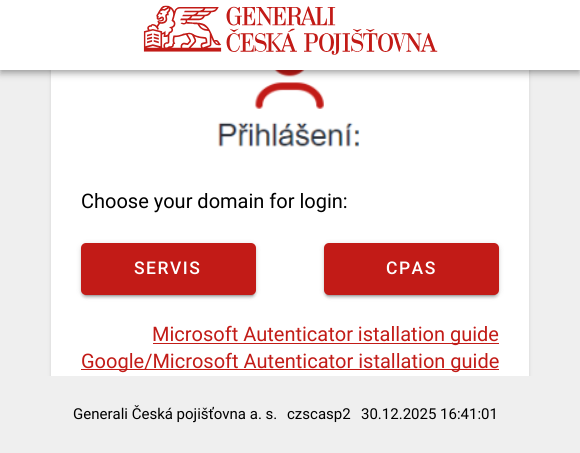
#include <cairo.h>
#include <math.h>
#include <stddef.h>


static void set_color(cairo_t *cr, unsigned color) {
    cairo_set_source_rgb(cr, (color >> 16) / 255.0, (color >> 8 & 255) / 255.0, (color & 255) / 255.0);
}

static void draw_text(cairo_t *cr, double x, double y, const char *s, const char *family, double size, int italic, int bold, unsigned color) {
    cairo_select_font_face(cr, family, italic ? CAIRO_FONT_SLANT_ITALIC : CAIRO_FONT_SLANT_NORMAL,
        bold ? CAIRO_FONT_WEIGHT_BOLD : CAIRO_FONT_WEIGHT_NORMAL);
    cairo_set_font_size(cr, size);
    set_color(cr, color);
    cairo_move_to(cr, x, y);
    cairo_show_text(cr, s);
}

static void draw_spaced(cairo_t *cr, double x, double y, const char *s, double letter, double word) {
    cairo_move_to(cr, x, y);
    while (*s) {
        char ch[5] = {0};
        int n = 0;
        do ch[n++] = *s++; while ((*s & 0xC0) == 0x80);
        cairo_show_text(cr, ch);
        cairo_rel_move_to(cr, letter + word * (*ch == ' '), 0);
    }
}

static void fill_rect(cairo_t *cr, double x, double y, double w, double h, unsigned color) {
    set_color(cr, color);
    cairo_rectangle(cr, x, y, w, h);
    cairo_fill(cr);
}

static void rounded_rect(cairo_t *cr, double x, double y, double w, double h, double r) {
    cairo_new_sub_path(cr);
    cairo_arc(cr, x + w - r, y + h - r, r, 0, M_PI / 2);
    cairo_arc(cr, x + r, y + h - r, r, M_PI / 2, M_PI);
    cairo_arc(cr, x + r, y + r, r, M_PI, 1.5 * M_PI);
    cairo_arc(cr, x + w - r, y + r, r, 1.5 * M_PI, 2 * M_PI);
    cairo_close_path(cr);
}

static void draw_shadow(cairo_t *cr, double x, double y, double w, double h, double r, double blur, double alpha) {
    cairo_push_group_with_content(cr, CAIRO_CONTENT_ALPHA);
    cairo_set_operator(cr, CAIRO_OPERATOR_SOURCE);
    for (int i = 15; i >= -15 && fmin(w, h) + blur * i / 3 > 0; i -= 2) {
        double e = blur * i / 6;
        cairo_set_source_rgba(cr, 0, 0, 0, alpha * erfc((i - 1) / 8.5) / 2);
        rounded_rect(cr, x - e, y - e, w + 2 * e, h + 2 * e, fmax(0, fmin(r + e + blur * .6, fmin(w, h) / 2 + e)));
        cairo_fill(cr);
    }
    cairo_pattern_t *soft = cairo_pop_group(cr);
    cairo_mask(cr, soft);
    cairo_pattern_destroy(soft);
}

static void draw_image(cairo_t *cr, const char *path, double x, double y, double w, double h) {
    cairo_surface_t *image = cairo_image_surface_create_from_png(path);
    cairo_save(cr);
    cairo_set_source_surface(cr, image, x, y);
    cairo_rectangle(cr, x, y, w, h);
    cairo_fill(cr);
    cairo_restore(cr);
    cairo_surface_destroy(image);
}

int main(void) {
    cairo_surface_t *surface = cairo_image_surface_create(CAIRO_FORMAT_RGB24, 580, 453);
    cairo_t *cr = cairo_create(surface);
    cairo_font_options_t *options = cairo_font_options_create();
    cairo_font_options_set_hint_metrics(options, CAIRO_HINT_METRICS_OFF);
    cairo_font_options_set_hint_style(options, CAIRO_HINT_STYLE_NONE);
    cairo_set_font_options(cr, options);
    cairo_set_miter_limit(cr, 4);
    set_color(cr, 0xEFEFEF);
    cairo_paint(cr);
    cairo_save(cr);
    cairo_rectangle(cr, 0, 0, 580, 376);
    cairo_clip(cr);
    set_color(cr, 0x000000);
    draw_shadow(cr, 51, 1, 478, 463, 5, 2, 0.12);
    cairo_restore(cr);
    fill_rect(cr, 51, 70, 478, 306, 0xFFFFFF);
    draw_image(cr, "assets/img2.png", 217, 70, 143, 77);
    set_color(cr, 0x000000);
    draw_shadow(cr, 0, 1, 580, 70, 0, 6, 0.12);
    draw_shadow(cr, 0, 5, 580, 70, 0, 3, 0.14);
    draw_shadow(cr, 1, 4, 578, 67, 0, 2.5, 0.2);
    fill_rect(cr, 0, 0, 580, 70, 0xFFFFFF);
    draw_image(cr, "assets/img1.png", 143, 5, 295, 50);
    draw_text(cr, 81, 208, "Choose your domain for login:", "Roboto", 20, 0, 0, 0x000000);
    set_color(cr, 0x000000);
    draw_shadow(cr, 81, 244, 175, 52, 5, 3, 0.12);
    draw_shadow(cr, 81, 245, 175, 53, 5, 1, 0.14);
    draw_shadow(cr, 84, 249, 170, 47, 2.5, 0.5, 0.2);
    set_color(cr, 0xC21B17);
    rounded_rect(cr, 81, 243, 175, 52, 5);
    cairo_fill(cr);
    cairo_select_font_face(cr, "Roboto Medium", CAIRO_FONT_SLANT_NORMAL, CAIRO_FONT_WEIGHT_NORMAL);
    cairo_set_font_size(cr, 17.5);
    set_color(cr, 0xFFFFFF);
    draw_spaced(cr, 134, 274, "SERVIS", 1.5, 0);
    set_color(cr, 0x000000);
    draw_shadow(cr, 324, 244, 175, 52, 5, 3, 0.12);
    draw_shadow(cr, 324, 245, 175, 53, 5, 1, 0.14);
    draw_shadow(cr, 326, 249, 170, 47, 2.5, 0.5, 0.2);
    set_color(cr, 0xC21B17);
    rounded_rect(cr, 324, 243, 175, 52, 5);
    cairo_fill(cr);
    set_color(cr, 0xFFFFFF);
    draw_spaced(cr, 386, 274, "CPAS", 1.5, 0);
    fill_rect(cr, 153, 343, 346, 1, 0xC21B17);
    draw_text(cr, 152, 341, "Microsoft Autenticator istallation guide", "Roboto", 20, 0, 0, 0xC21B17);
    fill_rect(cr, 81, 369, 418, 1, 0xC21B17);
    draw_text(cr, 81, 368, "Google/Microsoft Autenticator istallation guide", "Roboto", 20, 0, 0, 0xC21B17);
    draw_text(cr, 73, 419, "Generali Česká pojišťovna a. s.", "Roboto", 15, 0, 0, 0x000000);
    draw_text(cr, 287, 419, "czscasp2", "Roboto", 15, 0, 0, 0x000000);
    draw_text(cr, 361, 419, "30.12.2025 16:41:01", "Roboto", 15, 0, 0, 0x000000);
    cairo_surface_write_to_png(surface, "output.png");
    cairo_font_options_destroy(options);
    cairo_destroy(cr);
    cairo_surface_destroy(surface);
    return 0;
}
